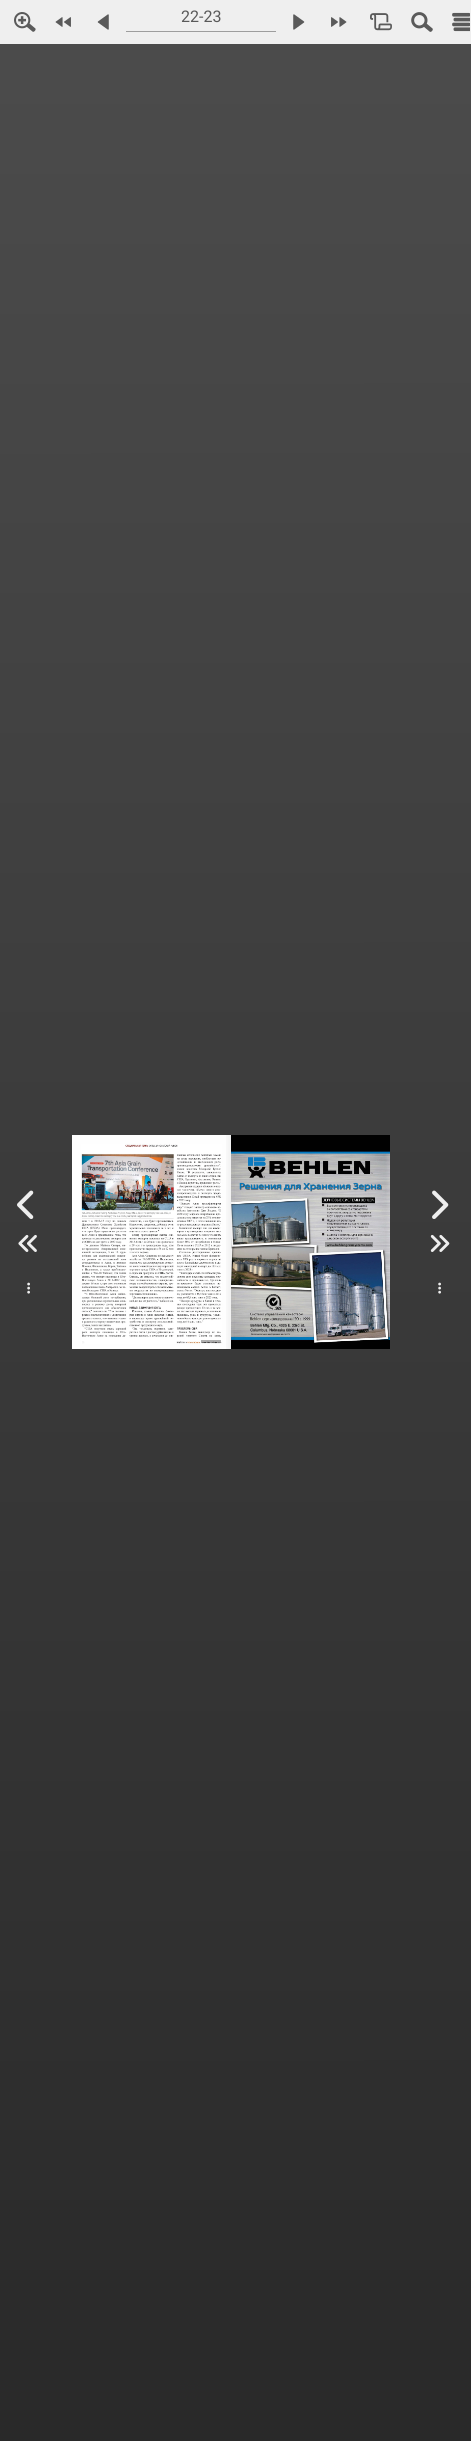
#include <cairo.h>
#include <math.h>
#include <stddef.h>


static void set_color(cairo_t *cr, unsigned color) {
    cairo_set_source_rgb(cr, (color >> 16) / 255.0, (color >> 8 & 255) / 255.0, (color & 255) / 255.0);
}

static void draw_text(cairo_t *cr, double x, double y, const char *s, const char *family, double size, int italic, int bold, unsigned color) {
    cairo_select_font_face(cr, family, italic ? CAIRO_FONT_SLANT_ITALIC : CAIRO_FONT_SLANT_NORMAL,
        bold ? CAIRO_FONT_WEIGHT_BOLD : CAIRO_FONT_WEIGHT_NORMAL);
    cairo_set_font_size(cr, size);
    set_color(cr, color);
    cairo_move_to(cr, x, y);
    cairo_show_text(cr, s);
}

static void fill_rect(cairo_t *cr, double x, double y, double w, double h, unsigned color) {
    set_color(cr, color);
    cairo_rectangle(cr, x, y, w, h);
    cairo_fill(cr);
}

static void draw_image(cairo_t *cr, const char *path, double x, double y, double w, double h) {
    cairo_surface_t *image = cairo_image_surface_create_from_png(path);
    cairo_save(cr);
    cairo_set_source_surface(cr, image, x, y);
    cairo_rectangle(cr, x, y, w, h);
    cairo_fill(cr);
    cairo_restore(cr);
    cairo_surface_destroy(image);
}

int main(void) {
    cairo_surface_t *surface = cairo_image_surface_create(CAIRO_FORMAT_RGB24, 471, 2441);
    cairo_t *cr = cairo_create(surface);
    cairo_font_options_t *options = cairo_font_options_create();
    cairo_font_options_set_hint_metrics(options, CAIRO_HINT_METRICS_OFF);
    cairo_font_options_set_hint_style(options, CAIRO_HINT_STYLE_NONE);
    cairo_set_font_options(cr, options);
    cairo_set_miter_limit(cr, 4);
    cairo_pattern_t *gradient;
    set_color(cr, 0xFFFFFF);
    cairo_paint(cr);
    gradient = cairo_pattern_create_linear(235, 0, 236, 2441);
    cairo_pattern_add_color_stop_rgba(gradient, 0, 0.298, 0.298, 0.298, 1);
    cairo_pattern_add_color_stop_rgba(gradient, 1, 0.161, 0.161, 0.161, 1);
    cairo_set_source(cr, gradient);
    cairo_pattern_destroy(gradient);
    cairo_rectangle(cr, 0, 44, 471, 2397);
    cairo_fill(cr);
    fill_rect(cr, 0, 0, 471, 44, 0xEFEFEF);
    draw_image(cr, "assets/img1.png", 14, 12, 22, 20);
    draw_image(cr, "assets/img2.png", 55, 17, 16, 10);
    draw_image(cr, "assets/img3.png", 97, 14, 12, 16);
    fill_rect(cr, 126, 31, 150, 1, 0x9E9E9E);
    draw_text(cr, 181, 22, "22-23", "Roboto", 16, 0, 0, 0x5A5A5A);
    draw_image(cr, "assets/img4.png", 293, 14, 12, 16);
    draw_image(cr, "assets/img5.png", 331, 17, 16, 10);
    draw_image(cr, "assets/img6.png", 370, 13, 22, 18);
    draw_image(cr, "assets/img7.png", 411, 12, 22, 20);
    draw_image(cr, "assets/img8.png", 452, 12, 18, 20);
    draw_image(cr, "assets/img9.png", 17, 1190, 17, 29);
    draw_image(cr, "assets/img10.png", 18, 1234, 19, 18);
    draw_image(cr, "assets/img11.png", 27, 1282, 3, 12);
    draw_image(cr, "assets/img12.png", 72, 1135, 159, 214);
    draw_image(cr, "assets/img13.png", 72, 1135, 159, 214);
    draw_image(cr, "assets/img14.png", 81, 1144, 141, 200);
    gradient = cairo_pattern_create_linear(72, 1243, 231, 1243);
    cairo_pattern_add_color_stop_rgba(gradient, 0.95, 0, 0, 0, 0);
    cairo_pattern_add_color_stop_rgba(gradient, 1, 0, 0, 0, 0.05);
    cairo_set_source(cr, gradient);
    cairo_pattern_destroy(gradient);
    cairo_rectangle(cr, 226, 1135, 5, 214);
    cairo_fill(cr);
    cairo_set_source_rgba(cr, 0.224, 0.224, 0.224, 0.4);
    cairo_rectangle(cr, 201, 1340, 20, 3);
    cairo_fill(cr);
    draw_image(cr, "assets/img15.png", 231, 1135, 159, 214);
    draw_image(cr, "assets/img16.png", 231, 1135, 159, 214);
    draw_image(cr, "assets/img17.png", 231, 1135, 159, 214);
    gradient = cairo_pattern_create_linear(390, 1243, 231, 1243);
    cairo_pattern_add_color_stop_rgba(gradient, 0.95, 0, 0, 0, 0);
    cairo_pattern_add_color_stop_rgba(gradient, 1, 0, 0, 0, 0.04);
    cairo_set_source(cr, gradient);
    cairo_pattern_destroy(gradient);
    cairo_rectangle(cr, 231, 1152, 4, 188);
    cairo_fill(cr);
    cairo_set_source_rgba(cr, 0.227, 0.227, 0.227, 0.4);
    cairo_rectangle(cr, 325, 1242, 48, 5);
    cairo_fill(cr);
    draw_image(cr, "assets/img18.png", 432, 1190, 17, 29);
    draw_image(cr, "assets/img19.png", 430, 1234, 20, 18);
    draw_image(cr, "assets/img11.png", 438, 1282, 3, 12);
    cairo_surface_write_to_png(surface, "output.png");
    cairo_font_options_destroy(options);
    cairo_destroy(cr);
    cairo_surface_destroy(surface);
    return 0;
}
